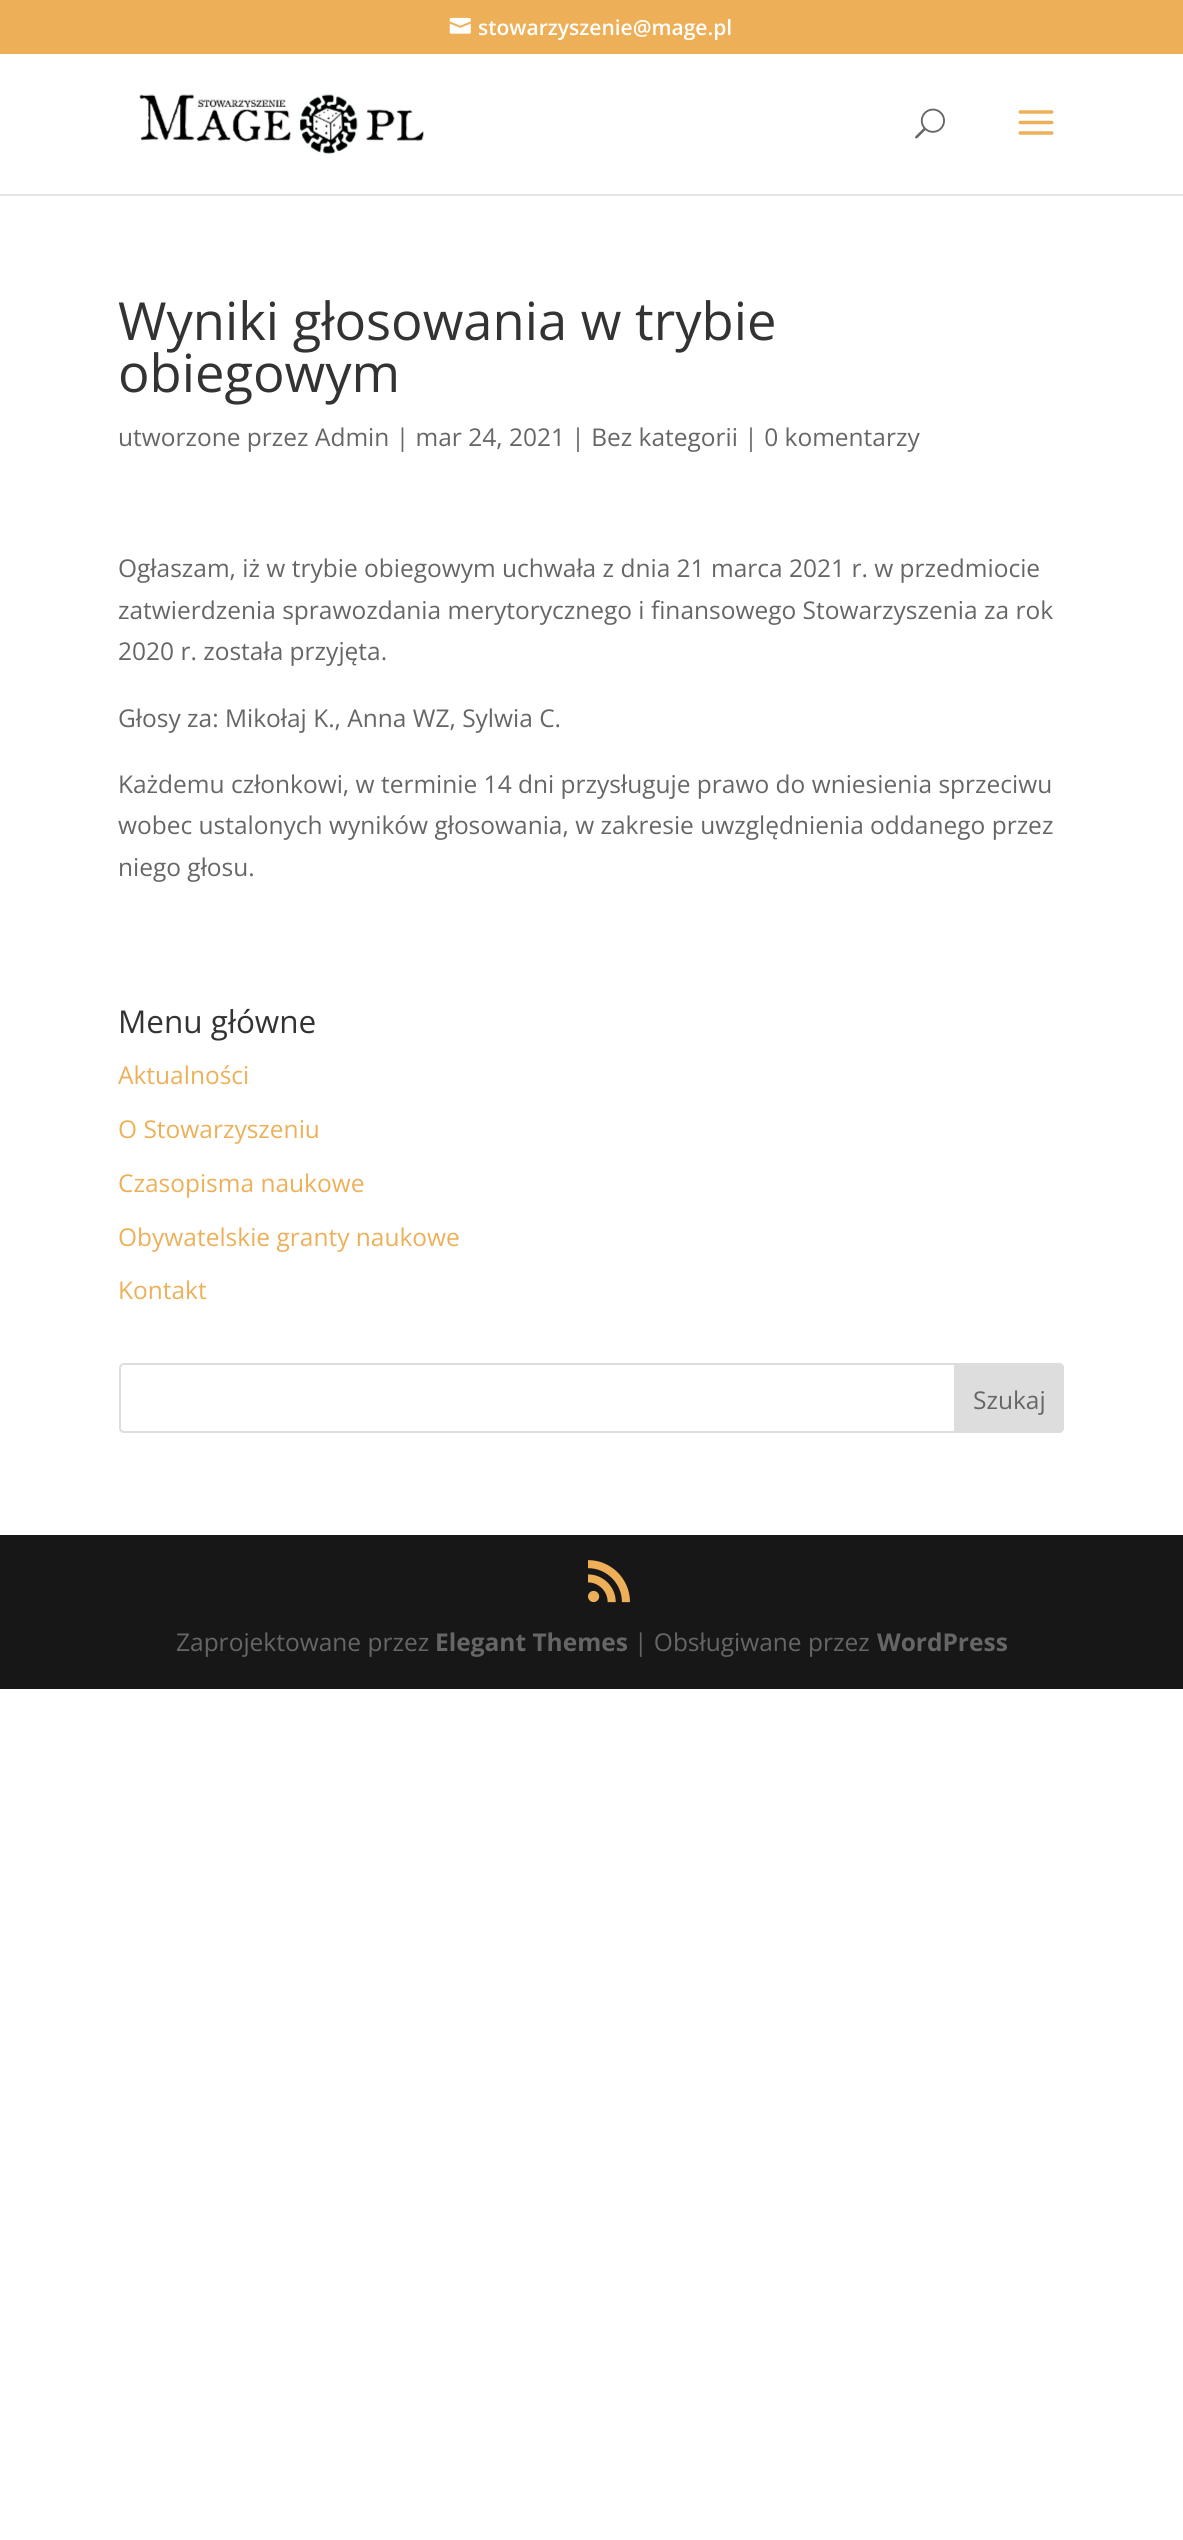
#include <cairo.h>
#include <math.h>
#include <stddef.h>


static void set_color(cairo_t *cr, unsigned color) {
    cairo_set_source_rgb(cr, (color >> 16) / 255.0, (color >> 8 & 255) / 255.0, (color & 255) / 255.0);
}

static void draw_text(cairo_t *cr, double x, double y, const char *s, const char *family, double size, int italic, int bold, unsigned color) {
    cairo_select_font_face(cr, family, italic ? CAIRO_FONT_SLANT_ITALIC : CAIRO_FONT_SLANT_NORMAL,
        bold ? CAIRO_FONT_WEIGHT_BOLD : CAIRO_FONT_WEIGHT_NORMAL);
    cairo_set_font_size(cr, size);
    set_color(cr, color);
    cairo_move_to(cr, x, y);
    cairo_show_text(cr, s);
}

static void fill_rect(cairo_t *cr, double x, double y, double w, double h, unsigned color) {
    set_color(cr, color);
    cairo_rectangle(cr, x, y, w, h);
    cairo_fill(cr);
}

static void rounded_rect(cairo_t *cr, double x, double y, double w, double h, double r) {
    cairo_new_sub_path(cr);
    cairo_arc(cr, x + w - r, y + h - r, r, 0, M_PI / 2);
    cairo_arc(cr, x + r, y + h - r, r, M_PI / 2, M_PI);
    cairo_arc(cr, x + r, y + r, r, M_PI, 1.5 * M_PI);
    cairo_arc(cr, x + w - r, y + r, r, 1.5 * M_PI, 2 * M_PI);
    cairo_close_path(cr);
}

static void draw_image(cairo_t *cr, const char *path, double x, double y, double w, double h) {
    cairo_surface_t *image = cairo_image_surface_create_from_png(path);
    cairo_save(cr);
    cairo_set_source_surface(cr, image, x, y);
    cairo_rectangle(cr, x, y, w, h);
    cairo_fill(cr);
    cairo_restore(cr);
    cairo_surface_destroy(image);
}

int main(void) {
    cairo_surface_t *surface = cairo_image_surface_create(CAIRO_FORMAT_RGB24, 1183, 2540);
    cairo_t *cr = cairo_create(surface);
    cairo_font_options_t *options = cairo_font_options_create();
    cairo_font_options_set_hint_metrics(options, CAIRO_HINT_METRICS_OFF);
    cairo_font_options_set_hint_style(options, CAIRO_HINT_STYLE_NONE);
    cairo_set_font_options(cr, options);
    cairo_set_miter_limit(cr, 4);
    set_color(cr, 0xFFFFFF);
    cairo_paint(cr);
    fill_rect(cr, 0, 0, 1183, 54, 0xEDB059);
    draw_image(cr, "assets/img1.png", 449, 17, 22, 17);
    draw_text(cr, 478, 35, "stowarzyszenie@mage.pl", "Open Sans SemiBold", 21, 0, 0, 0xFFFFFF);
    fill_rect(cr, 0, 194, 1183, 2, 0xE6E6E6);
    draw_image(cr, "assets/img2.png", 139, 92, 285, 64);
    draw_image(cr, "assets/img3.png", 915, 108, 30, 31);
    draw_image(cr, "assets/img4.png", 1018, 110, 36, 25);
    draw_text(cr, 118, 340, "Wyniki głosowania w trybie", "Open Sans", 52.5, 0, 0, 0x333333);
    draw_text(cr, 118, 392, "obiegowym", "Open Sans", 52.5, 0, 0, 0x333333);
    draw_text(cr, 118, 446, "utworzone przez Admin | mar 24, 2021 | Bez kategorii | 0 komentarzy", "Open Sans", 24.5, 0, 0, 0x666666);
    draw_text(cr, 118, 577, "Ogłaszam, iż w trybie obiegowym uchwała z dnia 21 marca 2021 r. w przedmiocie", "Open Sans", 24.5, 0, 0, 0x666666);
    draw_text(cr, 118, 619, "zatwierdzenia sprawozdania merytorycznego i finansowego Stowarzyszenia za rok", "Open Sans", 24.5, 0, 0, 0x666666);
    draw_text(cr, 118, 660, "2020 r. została przyjęta.", "Open Sans", 24.5, 0, 0, 0x666666);
    draw_text(cr, 118, 727, "Głosy za: Mikołaj K., Anna WZ, Sylwia C.", "Open Sans", 24.5, 0, 0, 0x666666);
    draw_text(cr, 118, 793, "Każdemu członkowi, w terminie 14 dni przysługuje prawo do wniesienia sprzeciwu", "Open Sans", 24.5, 0, 0, 0x666666);
    draw_text(cr, 118, 834, "wobec ustalonych wyników głosowania, w zakresie uwzględnienia oddanego przez", "Open Sans", 24.5, 0, 0, 0x666666);
    draw_text(cr, 118, 876, "niego głosu.", "Open Sans", 24.5, 0, 0, 0x666666);
    draw_text(cr, 118, 1033, "Menu główne", "Open Sans", 31.5, 0, 0, 0x333333);
    draw_text(cr, 118, 1084, "Aktualności", "Open Sans", 24.5, 0, 0, 0xEDB059);
    draw_text(cr, 118, 1138, "O Stowarzyszeniu", "Open Sans", 24.5, 0, 0, 0xEDB059);
    draw_text(cr, 118, 1192, "Czasopisma naukowe", "Open Sans", 24.5, 0, 0, 0xEDB059);
    draw_text(cr, 118, 1246, "Obywatelskie granty naukowe", "Open Sans", 24.5, 0, 0, 0xEDB059);
    draw_text(cr, 118, 1299, "Kontakt", "Open Sans", 24.5, 0, 0, 0xEDB059);
    rounded_rect(cr, 120, 1364, 943, 68, 4);
    set_color(cr, 0xDDDDDD);
    cairo_stroke(cr);
    cairo_new_path(cr);
    cairo_move_to(cr, 955, 1364);
    cairo_line_to(cr, 1059, 1364);
    cairo_curve_to(cr, 1061, 1364, 1063, 1366, 1063, 1368);
    cairo_line_to(cr, 1063, 1428);
    cairo_curve_to(cr, 1063, 1430, 1061, 1432, 1059, 1432);
    cairo_line_to(cr, 955, 1432);
    cairo_close_path(cr);
    cairo_fill_preserve(cr);
    cairo_stroke(cr);
    draw_text(cr, 973, 1409, "Szukaj", "Open Sans", 24.5, 0, 0, 0x666666);
    fill_rect(cr, 0, 1535, 1183, 154, 0x171717);
    draw_image(cr, "assets/img5.png", 588, 1560, 42, 43);
    draw_text(cr, 176, 1651, "Zaprojektowane przez", "Open Sans", 24.5, 0, 0, 0x666666);
    draw_text(cr, 435, 1651, "Elegant Themes", "Open Sans", 24.5, 0, 1, 0x666666);
    draw_text(cr, 634, 1651, "| Obsługiwane przez", "Open Sans", 24.5, 0, 0, 0x666666);
    draw_text(cr, 877, 1651, "WordPress", "Open Sans", 24.5, 0, 1, 0x666666);
    cairo_surface_write_to_png(surface, "output.png");
    cairo_font_options_destroy(options);
    cairo_destroy(cr);
    cairo_surface_destroy(surface);
    return 0;
}
